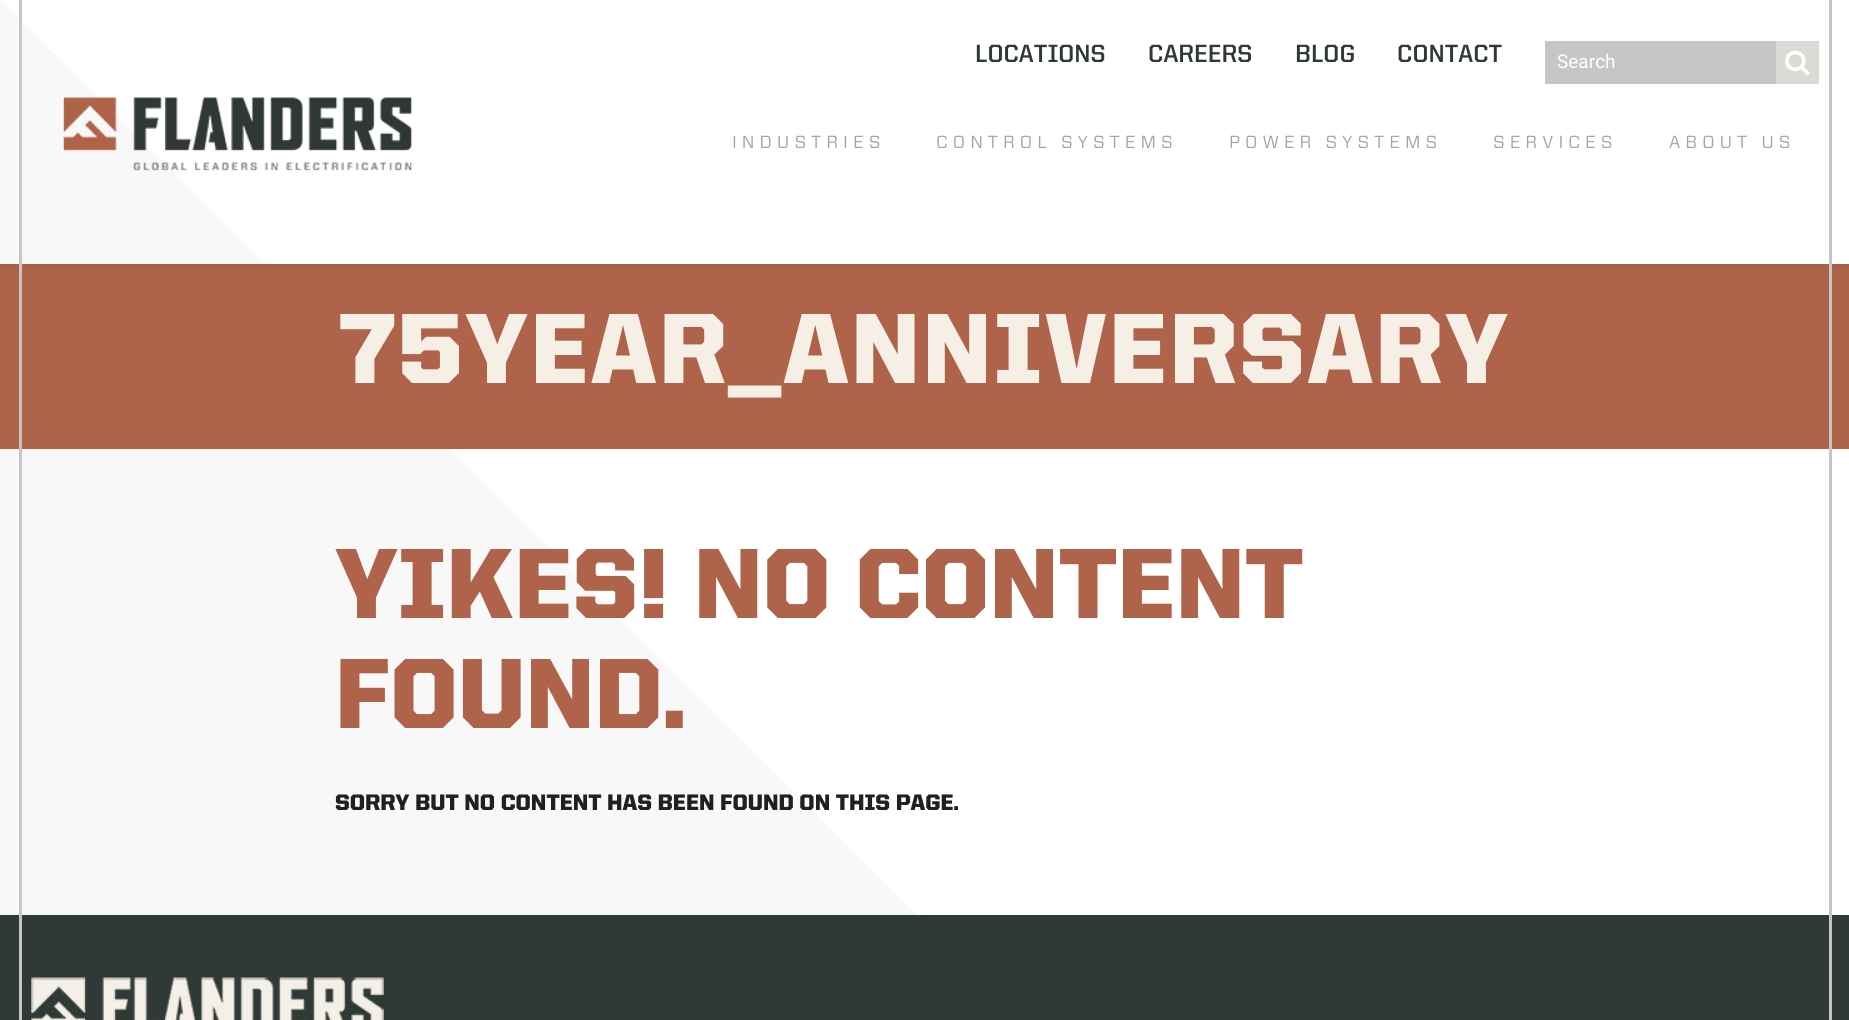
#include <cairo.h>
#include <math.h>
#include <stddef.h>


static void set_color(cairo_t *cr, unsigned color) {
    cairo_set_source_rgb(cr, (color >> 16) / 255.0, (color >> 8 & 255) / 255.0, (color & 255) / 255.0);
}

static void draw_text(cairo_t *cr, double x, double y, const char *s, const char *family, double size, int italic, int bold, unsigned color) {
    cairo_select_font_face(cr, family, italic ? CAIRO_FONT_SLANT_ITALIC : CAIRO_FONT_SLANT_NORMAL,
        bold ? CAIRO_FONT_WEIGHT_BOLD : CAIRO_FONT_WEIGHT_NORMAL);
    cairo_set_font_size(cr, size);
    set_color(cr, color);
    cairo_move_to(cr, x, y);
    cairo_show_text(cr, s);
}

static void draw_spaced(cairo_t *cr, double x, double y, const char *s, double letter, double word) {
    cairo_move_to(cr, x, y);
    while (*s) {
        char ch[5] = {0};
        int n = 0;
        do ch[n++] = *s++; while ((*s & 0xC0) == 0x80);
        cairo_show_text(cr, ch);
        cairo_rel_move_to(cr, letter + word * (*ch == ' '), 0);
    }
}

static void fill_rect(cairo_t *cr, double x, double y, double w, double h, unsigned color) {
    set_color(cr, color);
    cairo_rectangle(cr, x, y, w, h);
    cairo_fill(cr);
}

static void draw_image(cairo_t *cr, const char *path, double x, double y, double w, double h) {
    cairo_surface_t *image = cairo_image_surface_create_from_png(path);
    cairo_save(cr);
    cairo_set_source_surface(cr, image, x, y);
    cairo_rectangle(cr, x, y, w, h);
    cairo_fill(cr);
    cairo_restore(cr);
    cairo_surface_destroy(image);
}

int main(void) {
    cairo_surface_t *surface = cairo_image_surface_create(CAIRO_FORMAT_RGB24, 1849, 1020);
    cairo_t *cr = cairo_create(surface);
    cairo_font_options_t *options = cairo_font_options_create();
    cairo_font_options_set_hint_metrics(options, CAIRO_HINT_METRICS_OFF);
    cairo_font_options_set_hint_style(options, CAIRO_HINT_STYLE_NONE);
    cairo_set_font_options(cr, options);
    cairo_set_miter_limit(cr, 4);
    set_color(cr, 0xFFFFFF);
    cairo_paint(cr);
    draw_image(cr, "assets/img1.png", 0, 1, 1022, 914);
    fill_rect(cr, 0, 270, 1849, 179, 0xAE634A);
    fill_rect(cr, 0, 264, 1849, 6, 0xA96048);
    fill_rect(cr, 0, 915, 1849, 105, 0x2F3936);
    fill_rect(cr, 19, 0, 3, 1020, 0xC7C5C5);
    draw_image(cr, "assets/img2.png", 63, 97, 349, 74);
    draw_text(cr, 975, 62, "LOCATIONS", "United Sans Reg", 25, 0, 1, 0x2F3936);
    draw_text(cr, 1148, 62, "CAREERS", "United Sans Reg", 25, 0, 1, 0x2F3936);
    draw_text(cr, 1295, 62, "BLOG", "United Sans Reg", 25, 0, 1, 0x2F3936);
    draw_text(cr, 1397, 62, "CONTACT", "United Sans Reg", 25, 0, 1, 0x2F3936);
    fill_rect(cr, 1545, 41, 231, 43, 0xC7C5C5);
    draw_text(cr, 1557, 68, "Search", "Roboto", 19, 0, 0, 0xFFFFFF);
    fill_rect(cr, 1776, 41, 43, 43, 0xDBDAD7);
    draw_image(cr, "assets/img3.png", 1785, 50, 25, 25);
    cairo_select_font_face(cr, "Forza", CAIRO_FONT_SLANT_NORMAL, CAIRO_FONT_WEIGHT_NORMAL);
    cairo_set_font_size(cr, 17.5);
    set_color(cr, 0xA5A29F);
    draw_spaced(cr, 732, 148, "INDUSTRIES", 5, 0);
    draw_spaced(cr, 936, 148, "CONTROL SYSTEMS", 5, 0);
    draw_spaced(cr, 1229, 148, "POWER SYSTEMS", 5, 0);
    draw_spaced(cr, 1493, 148, "SERVICES", 5, 0);
    draw_spaced(cr, 1669, 148, "ABOUT US", 5, 0);
    cairo_select_font_face(cr, "United Sans Reg Black", CAIRO_FONT_SLANT_NORMAL, CAIRO_FONT_WEIGHT_NORMAL);
    cairo_set_font_size(cr, 100);
    set_color(cr, 0xF5EFE6);
    draw_spaced(cr, 339, 383, "75YEAR_ANNIVERSARY", 2.5, 0);
    draw_text(cr, 335, 618, "YIKES! NO CONTENT", "United Sans Reg Black", 100, 0, 0, 0xAE634A);
    draw_text(cr, 335, 728, "FOUND.", "United Sans Reg Black", 100, 0, 0, 0xAE634A);
    draw_text(cr, 335, 810, "SORRY BUT NO CONTENT HAS BEEN FOUND ON THIS PAGE.", "United Sans Reg Black", 22.5, 0, 0, 0x231F20);
    draw_image(cr, "assets/img4.png", 31, 977, 353, 43);
    fill_rect(cr, 1829, 0, 3, 1020, 0xC7C5C5);
    cairo_surface_write_to_png(surface, "output.png");
    cairo_font_options_destroy(options);
    cairo_destroy(cr);
    cairo_surface_destroy(surface);
    return 0;
}
